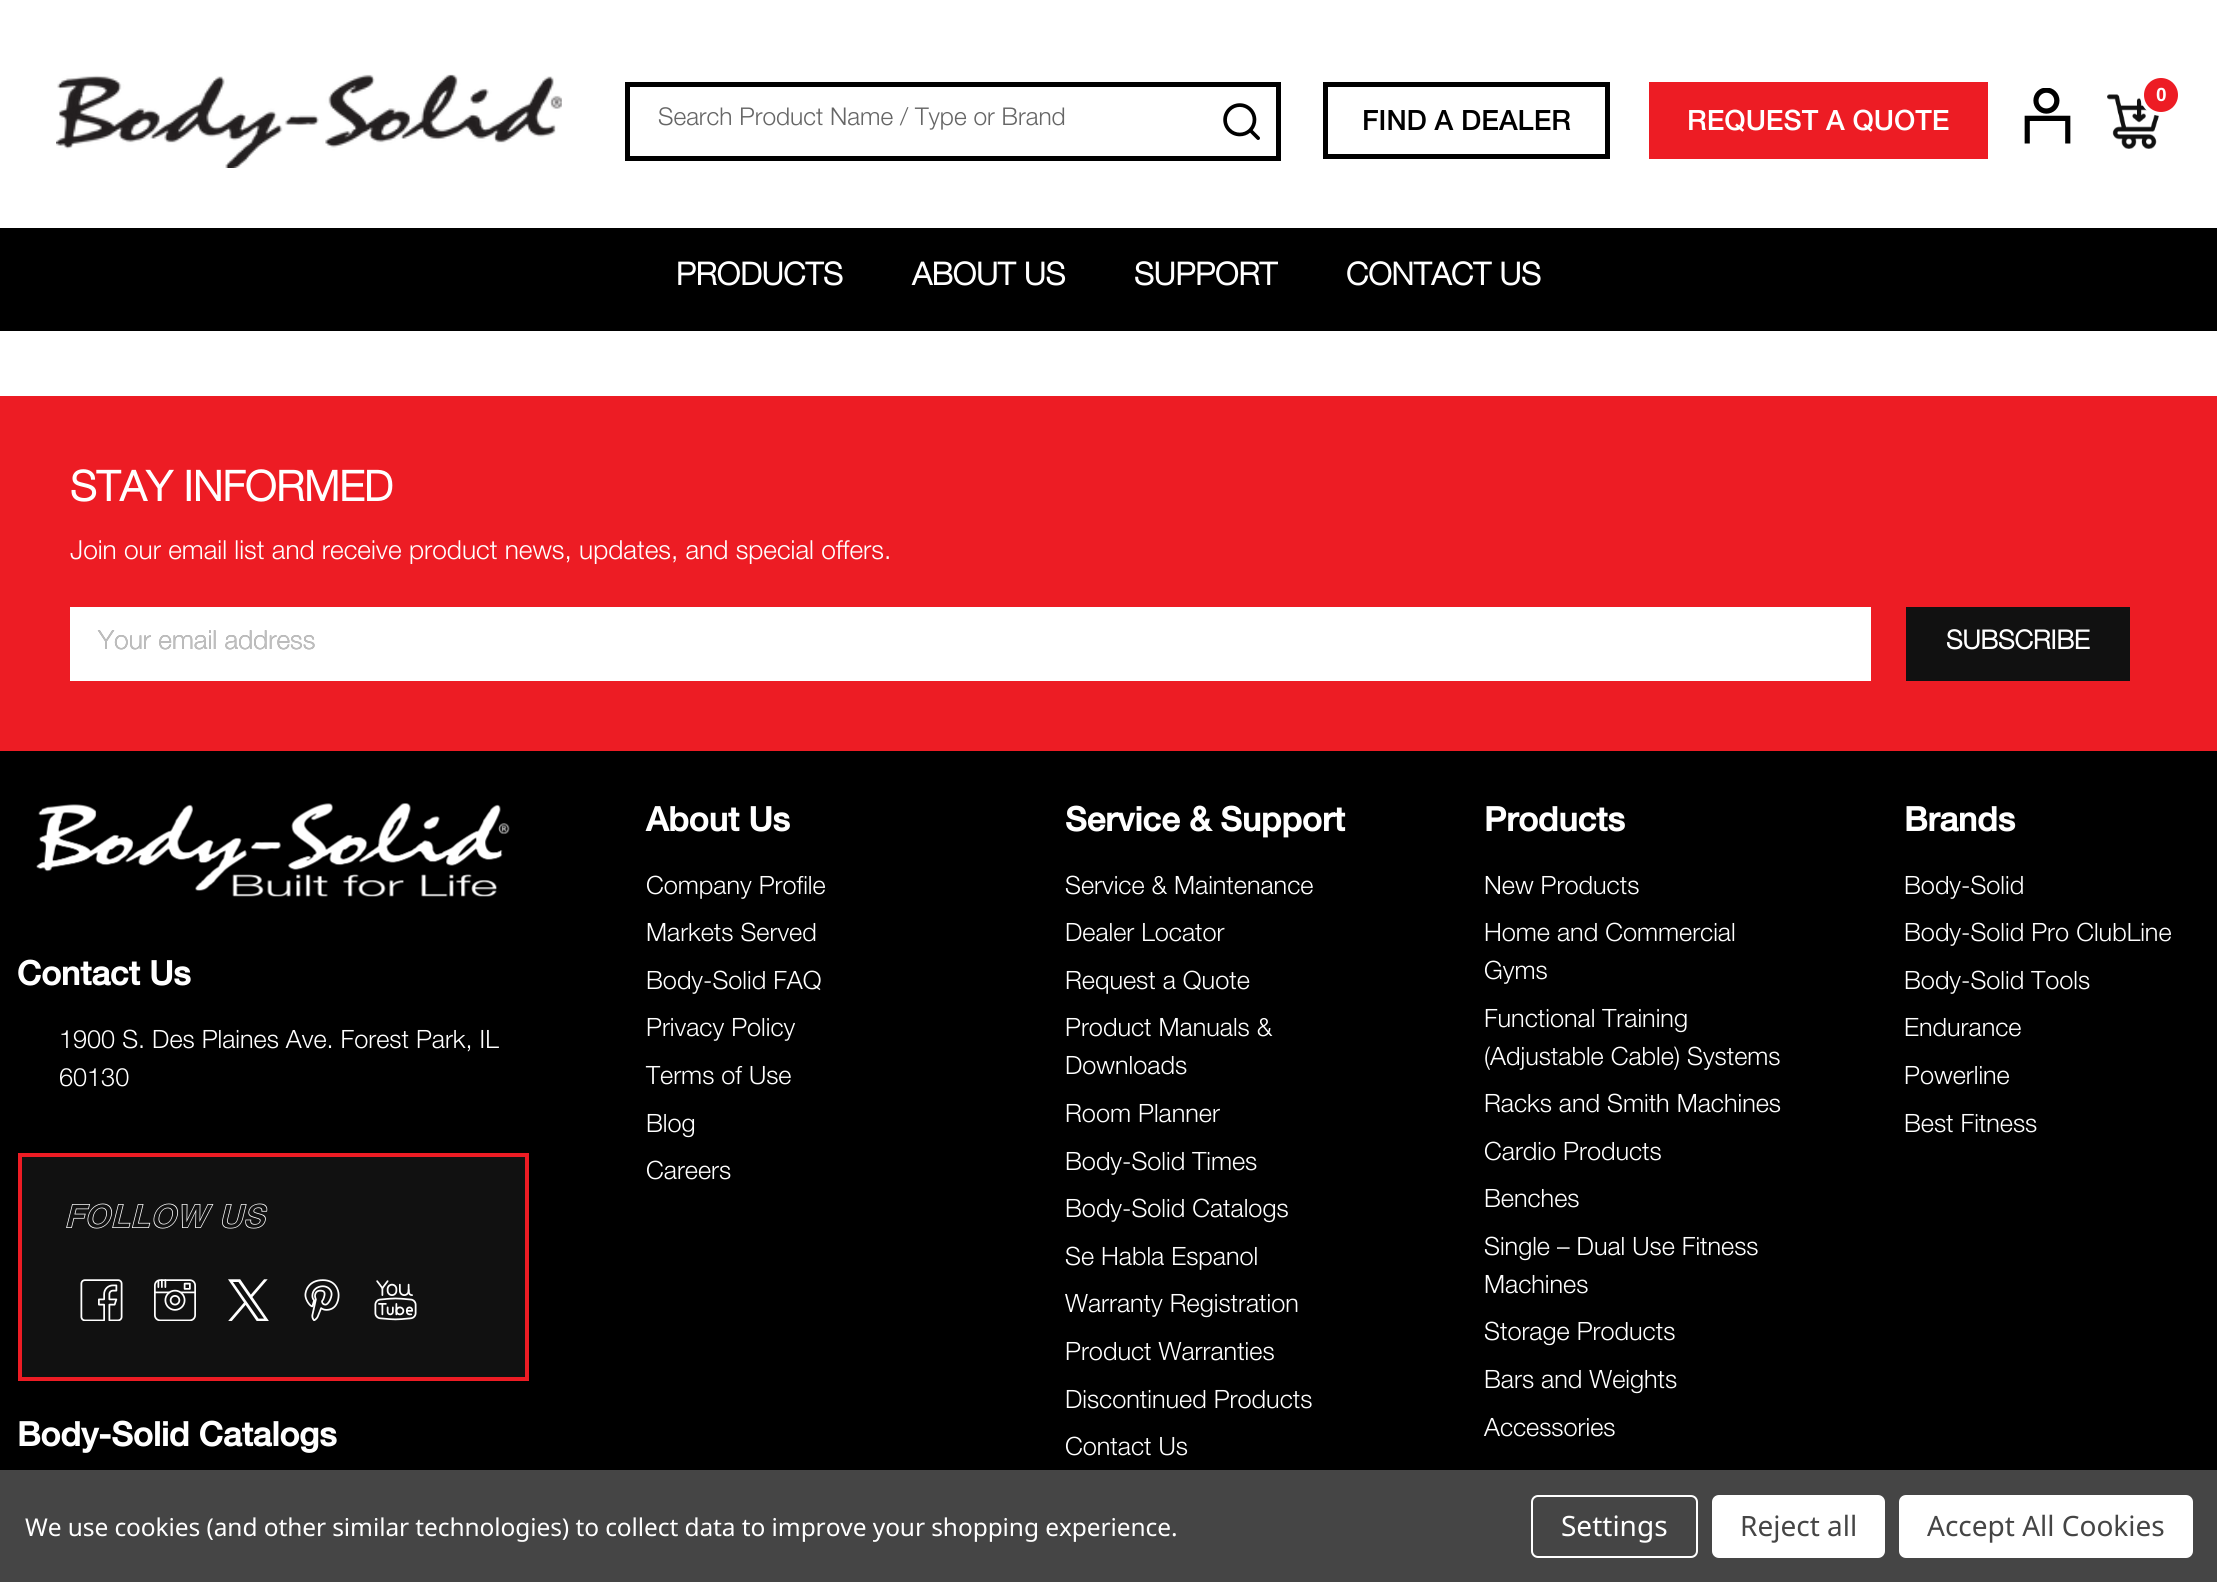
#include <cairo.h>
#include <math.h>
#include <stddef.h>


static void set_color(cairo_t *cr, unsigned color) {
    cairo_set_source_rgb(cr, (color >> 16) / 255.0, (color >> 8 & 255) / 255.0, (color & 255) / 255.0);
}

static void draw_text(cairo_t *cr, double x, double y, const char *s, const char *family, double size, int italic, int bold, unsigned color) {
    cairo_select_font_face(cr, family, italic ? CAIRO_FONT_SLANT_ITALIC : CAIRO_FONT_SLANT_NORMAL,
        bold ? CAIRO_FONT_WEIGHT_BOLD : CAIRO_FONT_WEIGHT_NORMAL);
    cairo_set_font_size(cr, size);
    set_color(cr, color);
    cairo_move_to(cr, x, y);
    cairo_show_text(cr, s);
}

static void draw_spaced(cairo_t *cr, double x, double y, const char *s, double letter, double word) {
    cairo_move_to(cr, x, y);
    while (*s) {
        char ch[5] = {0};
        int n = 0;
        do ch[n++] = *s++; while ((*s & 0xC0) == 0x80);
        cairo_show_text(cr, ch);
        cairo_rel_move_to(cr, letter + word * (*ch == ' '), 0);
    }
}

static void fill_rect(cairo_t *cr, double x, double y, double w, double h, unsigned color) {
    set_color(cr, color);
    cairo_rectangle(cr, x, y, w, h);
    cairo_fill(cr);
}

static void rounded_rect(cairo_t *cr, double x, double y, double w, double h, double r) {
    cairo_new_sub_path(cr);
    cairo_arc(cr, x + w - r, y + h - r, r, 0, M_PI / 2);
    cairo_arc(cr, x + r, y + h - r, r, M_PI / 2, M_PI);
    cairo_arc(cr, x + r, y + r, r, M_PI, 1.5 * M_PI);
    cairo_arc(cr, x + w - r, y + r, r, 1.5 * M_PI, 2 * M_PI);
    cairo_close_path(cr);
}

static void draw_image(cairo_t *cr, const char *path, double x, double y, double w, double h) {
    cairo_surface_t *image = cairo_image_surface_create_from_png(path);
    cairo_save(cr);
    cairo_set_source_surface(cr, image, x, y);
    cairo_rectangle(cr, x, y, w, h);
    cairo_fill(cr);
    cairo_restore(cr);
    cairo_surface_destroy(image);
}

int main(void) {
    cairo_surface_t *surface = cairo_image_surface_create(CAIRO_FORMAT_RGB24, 2217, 1582);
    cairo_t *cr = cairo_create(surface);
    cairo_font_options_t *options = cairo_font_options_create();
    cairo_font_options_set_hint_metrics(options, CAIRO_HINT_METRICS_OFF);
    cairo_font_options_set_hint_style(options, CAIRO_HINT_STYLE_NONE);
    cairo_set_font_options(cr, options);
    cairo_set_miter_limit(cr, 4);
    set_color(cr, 0xFFFFFF);
    cairo_paint(cr);
    draw_image(cr, "assets/img1.png", 56, 74, 506, 94);
    cairo_rectangle(cr, 627.5, 84.5, 651, 74);
    set_color(cr, 0x000000);
    cairo_set_line_width(cr, 5);
    cairo_stroke(cr);
    draw_text(cr, 658, 125, "Search Product Name / Type or Brand", "Helvetica Neue Light", 24.5, 0, 0, 0x666666);
    draw_image(cr, "assets/img2.png", 1223, 103, 37, 37);
    cairo_rectangle(cr, 1325.5, 84.5, 282, 72);
    set_color(cr, 0x000000);
    cairo_stroke(cr);
    draw_text(cr, 1362, 130, "FIND A DEALER", "Helvetica Neue Medium", 28, 0, 0, 0x000000);
    fill_rect(cr, 1649, 82, 339, 77, 0xED1C24);
    draw_text(cr, 1687, 130, "REQUEST A QUOTE", "Helvetica Neue Medium", 28, 0, 0, 0xFFFFFF);
    draw_image(cr, "assets/img3.png", 2024, 88, 47, 56);
    draw_image(cr, "assets/img4.png", 2107, 94, 53, 55);
    set_color(cr, 0xED1C24);
    cairo_arc(cr, 2161, 95, 19, 0, 2 * M_PI);
    cairo_fill_preserve(cr);
    set_color(cr, 0xFFFFFF);
    cairo_set_line_width(cr, 4);
    cairo_stroke(cr);
    draw_text(cr, 2156, 101, "0", "Liberation Sans", 19, 0, 1, 0xFFFFFF);
    fill_rect(cr, 0, 228, 2217, 103, 0x000000);
    draw_text(cr, 676, 285, "PRODUCTS", "Helvetica Neue", 31.5, 0, 1, 0xFFFFFF);
    draw_text(cr, 912, 285, "ABOUT US", "Helvetica Neue", 31.5, 0, 1, 0xFFFFFF);
    draw_text(cr, 1134, 285, "SUPPORT", "Helvetica Neue", 31.5, 0, 1, 0xFFFFFF);
    draw_text(cr, 1346, 285, "CONTACT US", "Helvetica Neue", 31.5, 0, 1, 0xFFFFFF);
    fill_rect(cr, 0, 396, 2217, 355, 0xED1C24);
    draw_text(cr, 70, 501, "STAY INFORMED", "Helvetica Neue", 42, 0, 1, 0xFFFFFF);
    draw_text(cr, 70, 559, "Join our email list and receive product news, updates, and special offers.", "Helvetica Neue Light", 26.25, 0, 0, 0xFFFFFF);
    fill_rect(cr, 70, 607, 1801, 74, 0xFFFFFF);
    draw_text(cr, 98, 649, "Your email address", "Helvetica Neue Light", 26.25, 0, 0, 0x949494);
    draw_text(cr, 98, 649, "Your email address", "Helvetica Neue Light", 26.25, 0, 0, 0xBEBEBE);
    fill_rect(cr, 1906, 607, 224, 74, 0x111111);
    draw_text(cr, 1946, 649, "SUBSCRIBE", "Helvetica Neue", 26.25, 0, 1, 0xFFFFFF);
    fill_rect(cr, 0, 751, 2217, 719, 0x000000);
    draw_image(cr, "assets/img5.png", 36, 803, 474, 94);
    draw_text(cr, 17, 985, "Contact Us", "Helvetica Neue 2", 33.5, 0, 1, 0xFFFFFF);
    draw_text(cr, 59, 1048, "1900 S. Des Plaines Ave. Forest Park, IL", "Helvetica Neue Light", 25.25, 0, 0, 0xFFFFFF);
    draw_text(cr, 59, 1086, "60130", "Helvetica Neue Light", 25.25, 0, 0, 0xFFFFFF);
    set_color(cr, 0x111111);
    cairo_rectangle(cr, 20, 1155, 507, 224);
    cairo_fill_preserve(cr);
    set_color(cr, 0xED1C24);
    cairo_stroke(cr);
    draw_text(cr, 64, 1228, "FOLLOW US", "Helvetica Neue", 33.5, 1, 1, 0xFFFFFF);
    draw_image(cr, "assets/img6.png", 80, 1279, 43, 42);
    draw_image(cr, "assets/img7.png", 154, 1279, 42, 42);
    draw_image(cr, "assets/img8.png", 228, 1279, 41, 42);
    draw_image(cr, "assets/img9.png", 304, 1279, 36, 42);
    draw_image(cr, "assets/img10.png", 374, 1280, 43, 41);
    draw_text(cr, 17, 1446, "Body-Solid Catalogs", "Helvetica Neue 2", 33.5, 0, 1, 0xFFFFFF);
    draw_text(cr, 646, 831, "About Us", "Helvetica Neue 2", 33.5, 0, 1, 0xFFFFFF);
    draw_text(cr, 646, 894, "Company Profile", "Helvetica Neue Light", 25.25, 0, 0, 0xFFFFFF);
    draw_text(cr, 646, 941, "Markets Served", "Helvetica Neue Light", 25.25, 0, 0, 0xFFFFFF);
    draw_text(cr, 646, 989, "Body-Solid FAQ", "Helvetica Neue Light", 25.25, 0, 0, 0xFFFFFF);
    draw_text(cr, 646, 1036, "Privacy Policy", "Helvetica Neue Light", 25.25, 0, 0, 0xFFFFFF);
    draw_text(cr, 646, 1084, "Terms of Use", "Helvetica Neue Light", 25.25, 0, 0, 0xFFFFFF);
    draw_text(cr, 646, 1132, "Blog", "Helvetica Neue Light", 25.25, 0, 0, 0xFFFFFF);
    draw_text(cr, 646, 1179, "Careers", "Helvetica Neue Light", 25.25, 0, 0, 0xFFFFFF);
    draw_text(cr, 1065, 831, "Service & Support", "Helvetica Neue 2", 33.5, 0, 1, 0xFFFFFF);
    draw_text(cr, 1065, 894, "Service & Maintenance", "Helvetica Neue Light", 25.25, 0, 0, 0xFFFFFF);
    draw_text(cr, 1065, 941, "Dealer Locator", "Helvetica Neue Light", 25.25, 0, 0, 0xFFFFFF);
    draw_text(cr, 1065, 989, "Request a Quote", "Helvetica Neue Light", 25.25, 0, 0, 0xFFFFFF);
    draw_text(cr, 1065, 1036, "Product Manuals &", "Helvetica Neue Light", 25.25, 0, 0, 0xFFFFFF);
    draw_text(cr, 1065, 1074, "Downloads", "Helvetica Neue Light", 25.25, 0, 0, 0xFFFFFF);
    draw_text(cr, 1065, 1122, "Room Planner", "Helvetica Neue Light", 25.25, 0, 0, 0xFFFFFF);
    draw_text(cr, 1065, 1170, "Body-Solid Times", "Helvetica Neue Light", 25.25, 0, 0, 0xFFFFFF);
    draw_text(cr, 1065, 1217, "Body-Solid Catalogs", "Helvetica Neue Light", 25.25, 0, 0, 0xFFFFFF);
    draw_text(cr, 1065, 1265, "Se Habla Espanol", "Helvetica Neue Light", 25.25, 0, 0, 0xFFFFFF);
    draw_text(cr, 1065, 1312, "Warranty Registration", "Helvetica Neue Light", 25.25, 0, 0, 0xFFFFFF);
    draw_text(cr, 1065, 1360, "Product Warranties", "Helvetica Neue Light", 25.25, 0, 0, 0xFFFFFF);
    draw_text(cr, 1065, 1408, "Discontinued Products", "Helvetica Neue Light", 25.25, 0, 0, 0xFFFFFF);
    draw_text(cr, 1065, 1455, "Contact Us", "Helvetica Neue Light", 25.25, 0, 0, 0xFFFFFF);
    draw_text(cr, 1484, 831, "Products", "Helvetica Neue 2", 33.5, 0, 1, 0xFFFFFF);
    draw_text(cr, 1484, 894, "New Products", "Helvetica Neue Light", 25.25, 0, 0, 0xFFFFFF);
    draw_text(cr, 1484, 941, "Home and Commercial", "Helvetica Neue Light", 25.25, 0, 0, 0xFFFFFF);
    draw_text(cr, 1484, 979, "Gyms", "Helvetica Neue Light", 25.25, 0, 0, 0xFFFFFF);
    draw_text(cr, 1484, 1027, "Functional Training", "Helvetica Neue Light", 25.25, 0, 0, 0xFFFFFF);
    draw_text(cr, 1484, 1065, "(Adjustable Cable) Systems", "Helvetica Neue Light", 25.25, 0, 0, 0xFFFFFF);
    draw_text(cr, 1484, 1112, "Racks and Smith Machines", "Helvetica Neue Light", 25.25, 0, 0, 0xFFFFFF);
    draw_text(cr, 1484, 1160, "Cardio Products", "Helvetica Neue Light", 25.25, 0, 0, 0xFFFFFF);
    draw_text(cr, 1484, 1207, "Benches", "Helvetica Neue Light", 25.25, 0, 0, 0xFFFFFF);
    draw_text(cr, 1484, 1255, "Single – Dual Use Fitness", "Helvetica Neue Light", 25.25, 0, 0, 0xFFFFFF);
    draw_text(cr, 1484, 1293, "Machines", "Helvetica Neue Light", 25.25, 0, 0, 0xFFFFFF);
    draw_text(cr, 1484, 1340, "Storage Products", "Helvetica Neue Light", 25.25, 0, 0, 0xFFFFFF);
    draw_text(cr, 1484, 1388, "Bars and Weights", "Helvetica Neue Light", 25.25, 0, 0, 0xFFFFFF);
    draw_text(cr, 1484, 1436, "Accessories", "Helvetica Neue Light", 25.25, 0, 0, 0xFFFFFF);
    draw_text(cr, 1904, 831, "Brands", "Helvetica Neue 2", 33.5, 0, 1, 0xFFFFFF);
    draw_text(cr, 1904, 894, "Body-Solid", "Helvetica Neue Light", 25.25, 0, 0, 0xFFFFFF);
    draw_text(cr, 1904, 941, "Body-Solid Pro ClubLine", "Helvetica Neue Light", 25.25, 0, 0, 0xFFFFFF);
    draw_text(cr, 1904, 989, "Body-Solid Tools", "Helvetica Neue Light", 25.25, 0, 0, 0xFFFFFF);
    draw_text(cr, 1904, 1036, "Endurance", "Helvetica Neue Light", 25.25, 0, 0, 0xFFFFFF);
    draw_text(cr, 1904, 1084, "Powerline", "Helvetica Neue Light", 25.25, 0, 0, 0xFFFFFF);
    draw_text(cr, 1904, 1132, "Best Fitness", "Helvetica Neue Light", 25.25, 0, 0, 0xFFFFFF);
    fill_rect(cr, 0, 1470, 2217, 112, 0x454545);
    cairo_select_font_face(cr, "Noto Sans", CAIRO_FONT_SLANT_NORMAL, CAIRO_FONT_WEIGHT_NORMAL);
    cairo_set_font_size(cr, 24.5);
    set_color(cr, 0xFFFFFF);
    draw_spaced(cr, 25, 1536, "We use cookies (and other similar technologies) to collect data to improve your shopping experience.", -0.09, 0);
    rounded_rect(cr, 1532, 1496, 165, 61, 6);
    cairo_set_line_width(cr, 2);
    cairo_stroke(cr);
    draw_text(cr, 1561, 1536, "Settings", "Noto Sans", 28, 0, 0, 0xFFFFFF);
    rounded_rect(cr, 1712, 1495, 173, 63, 7);
    cairo_fill(cr);
    draw_text(cr, 1740, 1536, "Reject all", "Noto Sans", 28, 0, 0, 0x454545);
    set_color(cr, 0xFFFFFF);
    rounded_rect(cr, 1899, 1495, 294, 63, 7);
    cairo_fill(cr);
    draw_text(cr, 1927, 1536, "Accept All Cookies", "Noto Sans", 28, 0, 0, 0x454545);
    cairo_surface_write_to_png(surface, "output.png");
    cairo_font_options_destroy(options);
    cairo_destroy(cr);
    cairo_surface_destroy(surface);
    return 0;
}
